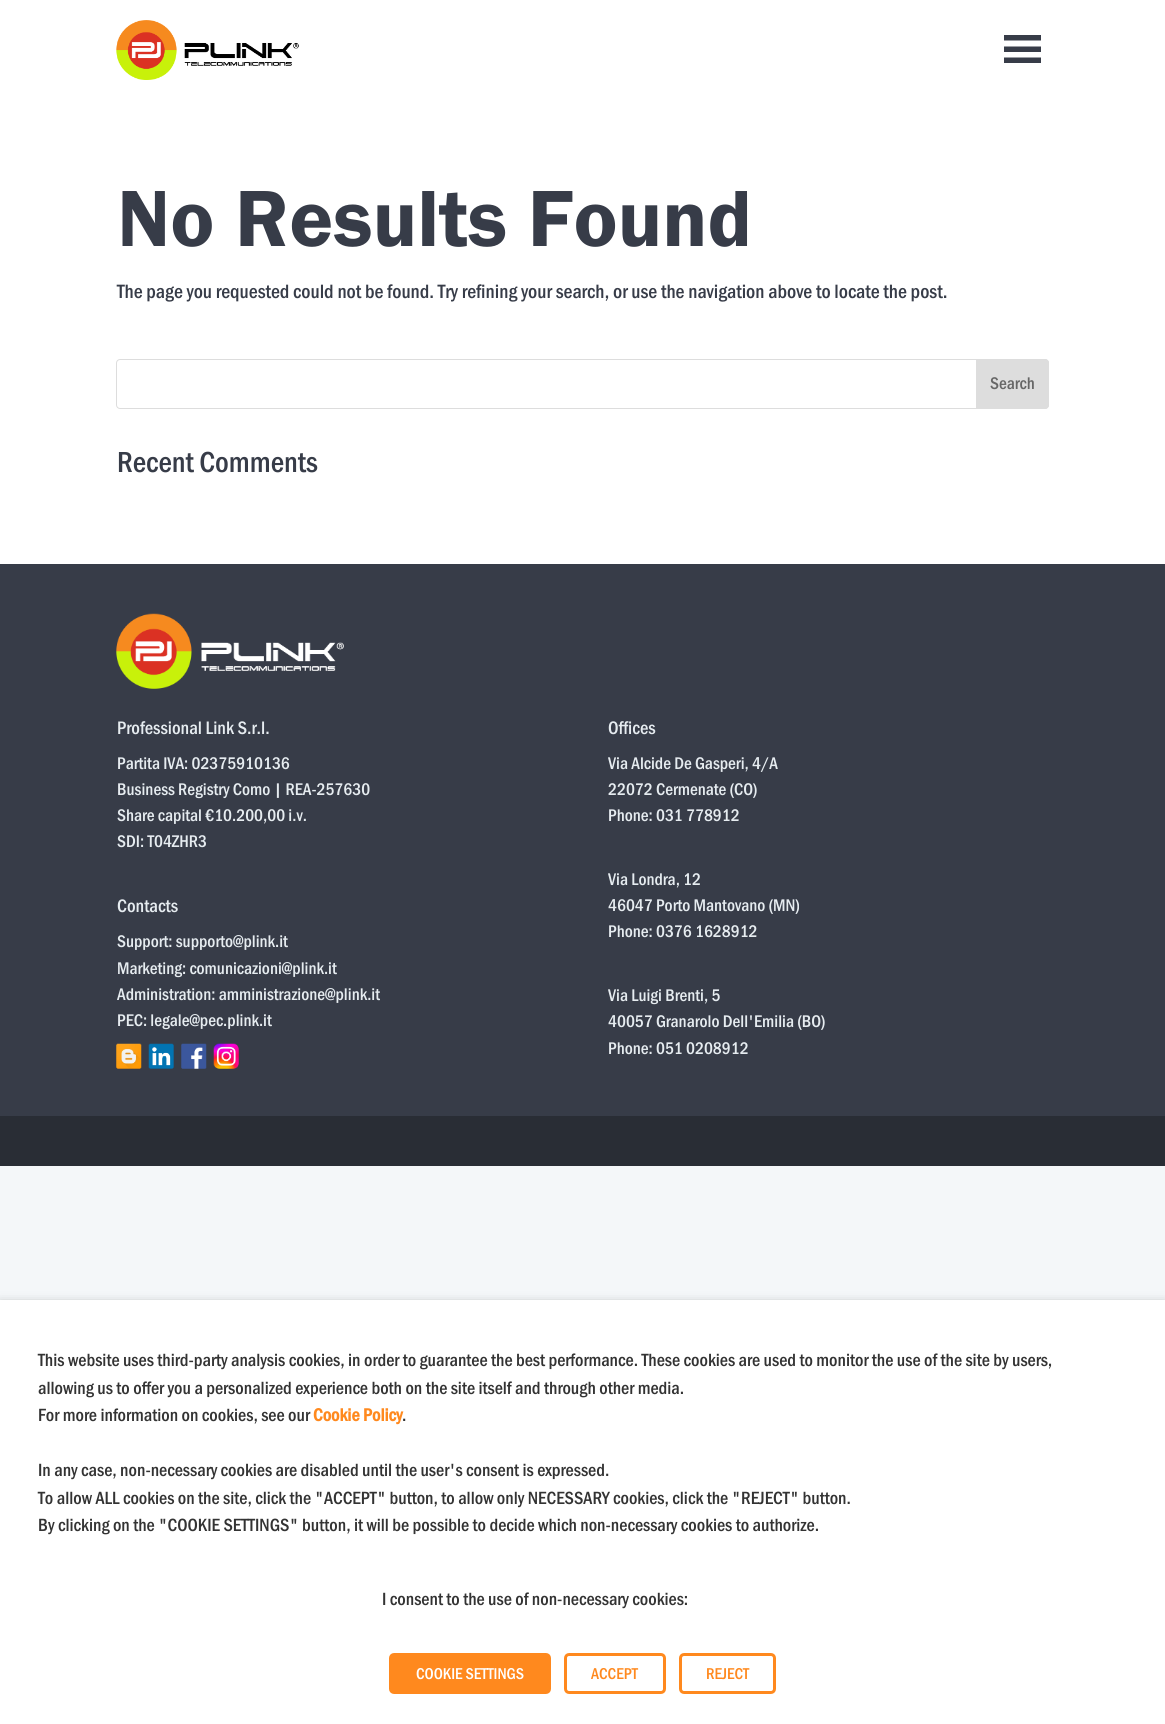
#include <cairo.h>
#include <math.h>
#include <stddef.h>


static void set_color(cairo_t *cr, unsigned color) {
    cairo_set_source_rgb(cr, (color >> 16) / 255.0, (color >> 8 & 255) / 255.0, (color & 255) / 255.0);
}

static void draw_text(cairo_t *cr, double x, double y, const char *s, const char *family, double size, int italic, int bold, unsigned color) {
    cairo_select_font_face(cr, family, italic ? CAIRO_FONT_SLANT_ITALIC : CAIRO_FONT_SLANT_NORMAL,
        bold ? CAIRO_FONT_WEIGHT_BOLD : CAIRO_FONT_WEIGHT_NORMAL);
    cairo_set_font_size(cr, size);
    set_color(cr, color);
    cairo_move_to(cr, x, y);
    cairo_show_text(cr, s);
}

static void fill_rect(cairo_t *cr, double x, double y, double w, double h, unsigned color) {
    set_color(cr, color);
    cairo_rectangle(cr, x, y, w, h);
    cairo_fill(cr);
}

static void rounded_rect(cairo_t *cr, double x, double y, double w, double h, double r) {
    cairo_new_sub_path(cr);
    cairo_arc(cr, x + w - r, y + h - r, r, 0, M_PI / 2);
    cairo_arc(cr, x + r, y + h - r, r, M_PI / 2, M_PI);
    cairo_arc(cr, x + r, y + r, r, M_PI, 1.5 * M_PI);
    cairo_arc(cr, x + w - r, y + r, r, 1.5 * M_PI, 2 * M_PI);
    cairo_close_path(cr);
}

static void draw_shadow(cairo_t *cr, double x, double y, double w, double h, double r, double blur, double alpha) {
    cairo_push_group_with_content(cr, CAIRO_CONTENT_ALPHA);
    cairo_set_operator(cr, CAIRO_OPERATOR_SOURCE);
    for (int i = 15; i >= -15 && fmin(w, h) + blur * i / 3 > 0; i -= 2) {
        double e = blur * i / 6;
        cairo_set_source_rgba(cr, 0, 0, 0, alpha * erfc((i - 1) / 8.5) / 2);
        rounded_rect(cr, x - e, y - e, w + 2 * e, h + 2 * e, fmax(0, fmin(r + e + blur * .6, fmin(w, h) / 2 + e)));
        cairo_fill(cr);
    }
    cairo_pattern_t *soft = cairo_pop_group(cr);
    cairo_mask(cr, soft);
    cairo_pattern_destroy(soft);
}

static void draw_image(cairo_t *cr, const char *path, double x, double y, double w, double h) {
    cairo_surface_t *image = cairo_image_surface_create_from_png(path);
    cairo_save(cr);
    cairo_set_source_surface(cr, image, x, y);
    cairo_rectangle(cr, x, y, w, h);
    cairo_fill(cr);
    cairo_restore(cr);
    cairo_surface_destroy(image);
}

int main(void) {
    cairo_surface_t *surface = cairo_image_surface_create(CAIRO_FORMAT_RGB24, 1165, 1724);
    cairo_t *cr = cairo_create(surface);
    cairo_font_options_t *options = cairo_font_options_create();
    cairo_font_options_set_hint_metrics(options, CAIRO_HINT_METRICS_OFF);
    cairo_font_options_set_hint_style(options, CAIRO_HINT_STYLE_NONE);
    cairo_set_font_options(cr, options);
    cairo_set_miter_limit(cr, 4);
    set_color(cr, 0xF4F7F9);
    cairo_paint(cr);
    fill_rect(cr, 0, 0, 1165, 564, 0xFFFFFF);
    draw_image(cr, "assets/img1.png", 116, 20, 183, 60);
    set_color(cr, 0x373C48);
    cairo_new_path(cr);
    cairo_move_to(cr, 1041, 40.5);
    cairo_line_to(cr, 1041, 35);
    cairo_line_to(cr, 1004, 35);
    cairo_line_to(cr, 1004, 40.5);
    cairo_close_path(cr);
    cairo_move_to(cr, 1041, 52);
    cairo_line_to(cr, 1041, 46.5);
    cairo_line_to(cr, 1004, 46.5);
    cairo_line_to(cr, 1004, 52);
    cairo_close_path(cr);
    cairo_move_to(cr, 1041, 63);
    cairo_line_to(cr, 1041, 57.5);
    cairo_line_to(cr, 1004, 57.5);
    cairo_line_to(cr, 1004, 63);
    cairo_close_path(cr);
    cairo_fill(cr);
    draw_text(cr, 117, 246, "No Results Found", "Franklin Gothic", 82.5, 0, 0, 0x373C48);
    draw_text(cr, 117, 298, "The page you requested could not be found. Try refining your search, or use the navigation above to locate the post.", "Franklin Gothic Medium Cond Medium", 20, 0, 0, 0x373C48);
    rounded_rect(cr, 116.5, 359.5, 932, 49, 3.5);
    set_color(cr, 0xDDDDDD);
    cairo_set_line_width(cr, 1);
    cairo_stroke(cr);
    cairo_new_path(cr);
    cairo_move_to(cr, 976.5, 359.5);
    cairo_line_to(cr, 1045, 359.5);
    cairo_curve_to(cr, 1047, 359.5, 1048.5, 361, 1048.5, 363);
    cairo_line_to(cr, 1048.5, 405);
    cairo_curve_to(cr, 1048.5, 407, 1047, 408.5, 1045, 408.5);
    cairo_line_to(cr, 976.5, 408.5);
    cairo_close_path(cr);
    cairo_fill_preserve(cr);
    cairo_stroke(cr);
    draw_text(cr, 990, 389, "Search", "Franklin Gothic Medium Cond Medium", 17.5, 0, 0, 0x666666);
    draw_text(cr, 117, 472, "Recent Comments", "Franklin Gothic Medium Cond Medium", 30, 0, 0, 0x373C48);
    fill_rect(cr, 0, 564, 1165, 552, 0x373C48);
    draw_image(cr, "assets/img2.png", 116, 613, 228, 76);
    draw_text(cr, 117, 734, "Professional Link S.r.l.", "Franklin Gothic Medium Cond Medium", 18.75, 0, 0, 0xE6ECF0);
    draw_text(cr, 117, 769, "Partita IVA: 02375910136", "Franklin Gothic Medium Cond Medium", 17.5, 0, 0, 0xE6ECF0);
    draw_text(cr, 117, 795, "Business Registry Como | REA-257630", "Franklin Gothic Medium Cond Medium", 17.5, 0, 0, 0xE6ECF0);
    draw_text(cr, 117, 821, "Share capital €10.200,00 i.v.", "Franklin Gothic Medium Cond Medium", 17.5, 0, 0, 0xE6ECF0);
    draw_text(cr, 117, 847, "SDI: T04ZHR3", "Franklin Gothic Medium Cond Medium", 17.5, 0, 0, 0xE6ECF0);
    draw_text(cr, 117, 912, "Contacts", "Franklin Gothic Medium Cond Medium", 18.75, 0, 0, 0xE6ECF0);
    draw_text(cr, 117, 947, "Support: supporto@plink.it", "Franklin Gothic Medium Cond Medium", 17.5, 0, 0, 0xE6ECF0);
    draw_text(cr, 117, 974, "Marketing: comunicazioni@plink.it", "Franklin Gothic Medium Cond Medium", 17.5, 0, 0, 0xE6ECF0);
    draw_text(cr, 117, 1000, "Administration: amministrazione@plink.it", "Franklin Gothic Medium Cond Medium", 17.5, 0, 0, 0xE6ECF0);
    draw_text(cr, 117, 1026, "PEC: legale@pec.plink.it", "Franklin Gothic Medium Cond Medium", 17.5, 0, 0, 0xE6ECF0);
    draw_image(cr, "assets/img3.png", 116, 1043, 26, 26);
    draw_image(cr, "assets/img4.png", 148, 1043, 26, 26);
    draw_image(cr, "assets/img5.png", 181, 1043, 26, 26);
    draw_image(cr, "assets/img6.png", 213, 1043, 26, 26);
    draw_text(cr, 608, 734, "Offices", "Franklin Gothic Medium Cond Medium", 18.75, 0, 0, 0xE6ECF0);
    draw_text(cr, 608, 769, "Via Alcide De Gasperi, 4/A", "Franklin Gothic Medium Cond Medium", 17.5, 0, 0, 0xE6ECF0);
    draw_text(cr, 608, 795, "22072 Cermenate (CO)", "Franklin Gothic Medium Cond Medium", 17.5, 0, 0, 0xE6ECF0);
    draw_text(cr, 608, 821, "Phone: 031 778912", "Franklin Gothic Medium Cond Medium", 17.5, 0, 0, 0xE6ECF0);
    draw_text(cr, 608, 885, "Via Londra, 12", "Franklin Gothic Medium Cond Medium", 17.5, 0, 0, 0xE6ECF0);
    draw_text(cr, 608, 911, "46047 Porto Mantovano (MN)", "Franklin Gothic Medium Cond Medium", 17.5, 0, 0, 0xE6ECF0);
    draw_text(cr, 608, 937, "Phone: 0376 1628912", "Franklin Gothic Medium Cond Medium", 17.5, 0, 0, 0xE6ECF0);
    draw_text(cr, 608, 1001, "Via Luigi Brenti, 5", "Franklin Gothic Medium Cond Medium", 17.5, 0, 0, 0xE6ECF0);
    draw_text(cr, 608, 1027, "40057 Granarolo Dell'Emilia (BO)", "Franklin Gothic Medium Cond Medium", 17.5, 0, 0, 0xE6ECF0);
    draw_text(cr, 608, 1054, "Phone: 051 0208912", "Franklin Gothic Medium Cond Medium", 17.5, 0, 0, 0xE6ECF0);
    fill_rect(cr, 0, 1116, 1165, 50, 0x292D35);
    set_color(cr, 0x000000);
    draw_shadow(cr, 0, 1306, 1165, 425, 0, 6, 0.5);
    fill_rect(cr, 0, 1300, 1165, 424, 0xFFFFFF);
    draw_text(cr, 38, 1366, "This website uses third-party analysis cookies, in order to guarantee the best performance. These cookies are used to monitor the use of the site by users,", "Franklin Gothic Medium Cond Medium", 18.33, 0, 0, 0x333333);
    draw_text(cr, 38, 1394, "allowing us to offer you a personalized experience both on the site itself and through other media.", "Franklin Gothic Medium Cond Medium", 18.33, 0, 0, 0x333333);
    draw_text(cr, 38, 1421, "For more information on cookies, see our", "Franklin Gothic Medium Cond Medium", 18.33, 0, 0, 0x333333);
    draw_text(cr, 313, 1421, "Cookie Policy", "Franklin Gothic Medium Cond", 18.33, 0, 1, 0xFF891E);
    draw_text(cr, 402, 1421, ".", "Franklin Gothic Medium Cond Medium", 18.33, 0, 0, 0x333333);
    draw_text(cr, 38, 1476, "In any case, non-necessary cookies are disabled until the user's consent is expressed.", "Franklin Gothic Medium Cond Medium", 18.33, 0, 0, 0x333333);
    draw_text(cr, 38, 1504, "To allow ALL cookies on the site, click the \"ACCEPT\" button, to allow only NECESSARY cookies, click the \"REJECT\" button.", "Franklin Gothic Medium Cond Medium", 18.33, 0, 0, 0x333333);
    draw_text(cr, 38, 1531, "By clicking on the \"COOKIE SETTINGS\" button, it will be possible to decide which non-necessary cookies to authorize.", "Franklin Gothic Medium Cond Medium", 18.33, 0, 0, 0x333333);
    draw_text(cr, 382, 1605, "I consent to the use of non-necessary cookies:", "Franklin Gothic Medium Cond Medium", 18.33, 0, 0, 0x333333);
    set_color(cr, 0xFF891E);
    rounded_rect(cr, 390.5, 1654.5, 159, 38, 3.5);
    cairo_fill_preserve(cr);
    cairo_set_line_width(cr, 3);
    cairo_stroke(cr);
    draw_text(cr, 416, 1679, "COOKIE SETTINGS", "Franklin Gothic Medium Cond Medium", 16.25, 0, 0, 0xFFFFFF);
    rounded_rect(cr, 565.5, 1654.5, 99, 38, 3.5);
    set_color(cr, 0xFF891E);
    cairo_stroke(cr);
    draw_text(cr, 591, 1679, "ACCEPT", "Franklin Gothic Medium Cond Medium", 16.25, 0, 0, 0xFF891E);
    rounded_rect(cr, 680.5, 1654.5, 94, 38, 3.5);
    cairo_stroke(cr);
    draw_text(cr, 706, 1679, "REJECT", "Franklin Gothic Medium Cond Medium", 16.25, 0, 0, 0xFF891E);
    cairo_surface_write_to_png(surface, "output.png");
    cairo_font_options_destroy(options);
    cairo_destroy(cr);
    cairo_surface_destroy(surface);
    return 0;
}
